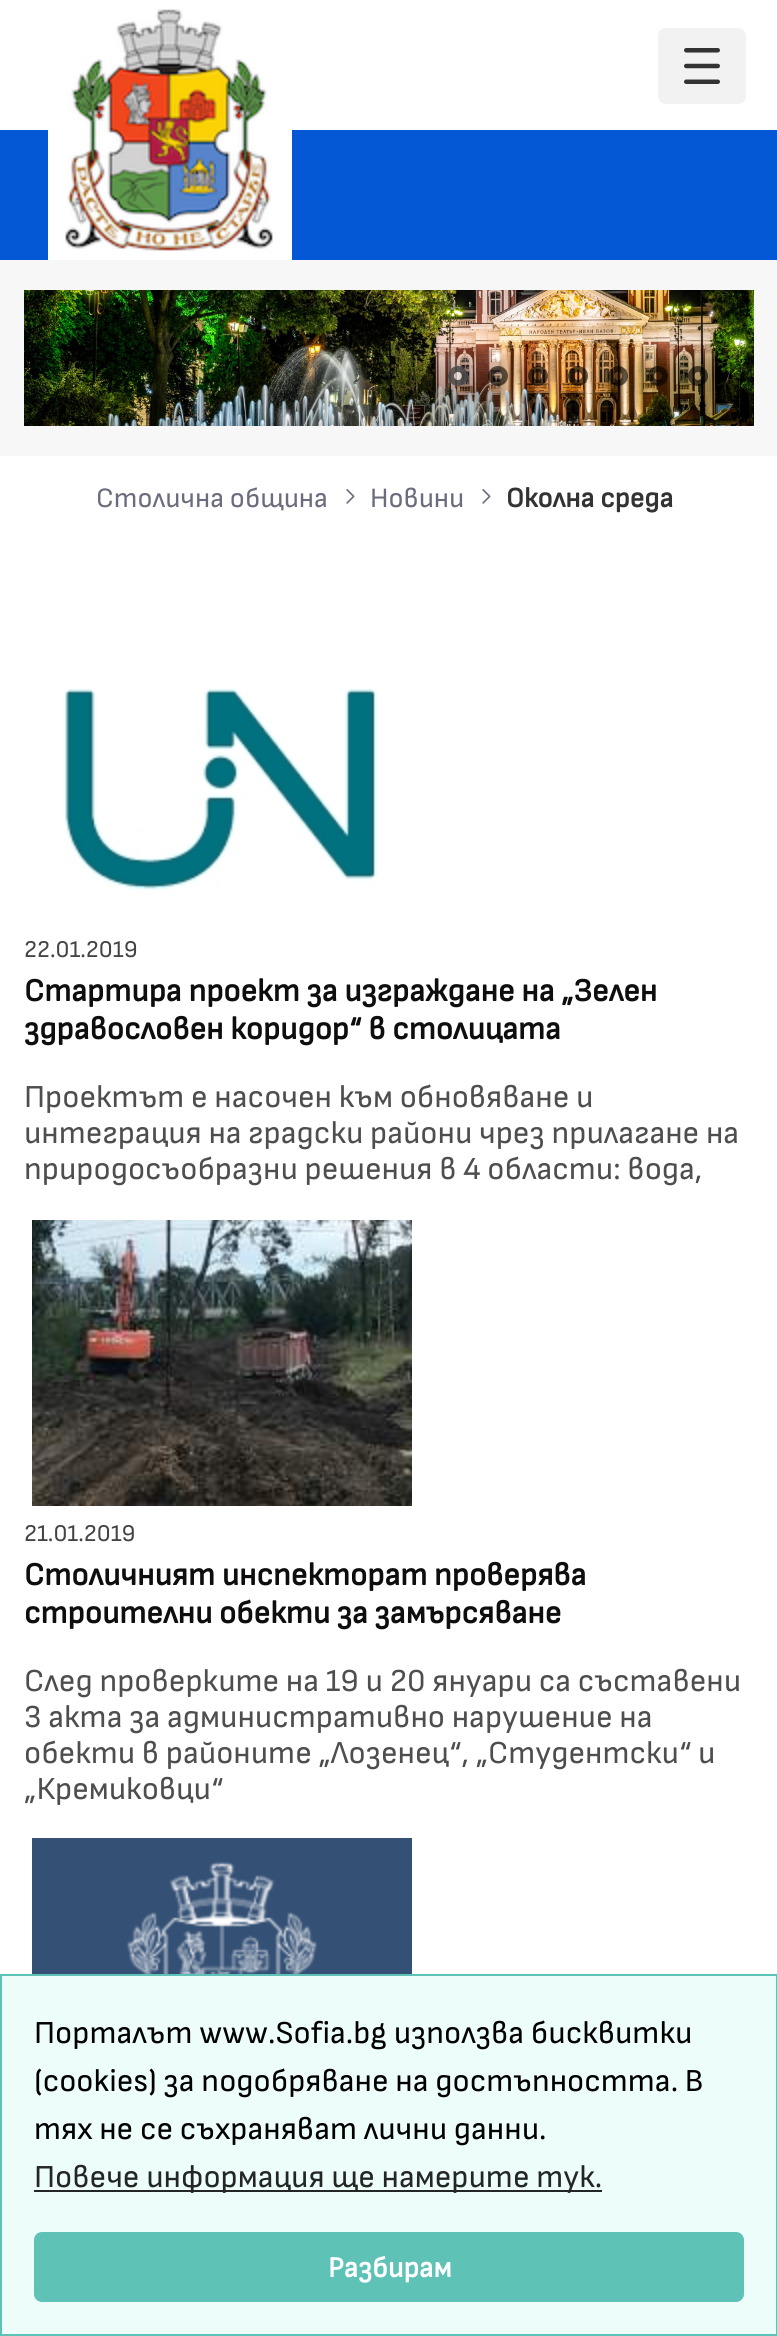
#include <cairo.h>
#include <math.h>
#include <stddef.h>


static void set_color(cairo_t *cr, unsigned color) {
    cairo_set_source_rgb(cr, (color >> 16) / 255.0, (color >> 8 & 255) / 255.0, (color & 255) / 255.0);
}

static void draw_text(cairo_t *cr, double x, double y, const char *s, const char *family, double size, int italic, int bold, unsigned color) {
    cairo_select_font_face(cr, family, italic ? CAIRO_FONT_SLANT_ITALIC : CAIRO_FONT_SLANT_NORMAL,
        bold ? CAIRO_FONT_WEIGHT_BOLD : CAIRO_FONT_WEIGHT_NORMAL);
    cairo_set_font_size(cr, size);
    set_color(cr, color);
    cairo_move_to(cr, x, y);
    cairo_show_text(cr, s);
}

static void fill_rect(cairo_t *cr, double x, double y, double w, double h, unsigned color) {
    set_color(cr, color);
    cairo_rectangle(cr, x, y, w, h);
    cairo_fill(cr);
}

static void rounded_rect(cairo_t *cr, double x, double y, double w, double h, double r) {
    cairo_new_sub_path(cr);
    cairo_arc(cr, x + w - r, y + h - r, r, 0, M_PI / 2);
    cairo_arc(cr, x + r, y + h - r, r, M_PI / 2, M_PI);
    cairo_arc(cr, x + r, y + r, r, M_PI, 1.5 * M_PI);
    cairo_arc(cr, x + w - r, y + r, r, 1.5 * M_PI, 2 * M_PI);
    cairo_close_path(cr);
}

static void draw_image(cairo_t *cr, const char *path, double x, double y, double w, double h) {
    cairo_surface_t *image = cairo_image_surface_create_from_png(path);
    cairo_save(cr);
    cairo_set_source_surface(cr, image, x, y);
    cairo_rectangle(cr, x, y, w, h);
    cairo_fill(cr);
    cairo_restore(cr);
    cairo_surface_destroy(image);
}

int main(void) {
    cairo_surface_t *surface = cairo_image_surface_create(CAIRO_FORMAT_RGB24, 777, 2336);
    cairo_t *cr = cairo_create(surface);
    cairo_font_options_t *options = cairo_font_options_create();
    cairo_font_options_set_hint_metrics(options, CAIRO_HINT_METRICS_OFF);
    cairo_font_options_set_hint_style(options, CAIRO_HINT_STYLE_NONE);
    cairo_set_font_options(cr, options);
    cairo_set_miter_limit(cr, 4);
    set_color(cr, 0xFFFFFF);
    cairo_paint(cr);
    fill_rect(cr, 0, 130, 777, 130, 0x0458D5);
    draw_image(cr, "assets/img1.png", 48, 9, 244, 251);
    set_color(cr, 0xF2F2F2);
    rounded_rect(cr, 658, 28, 88, 76, 8);
    cairo_fill(cr);
    draw_image(cr, "assets/img2.png", 684, 48, 36, 36);
    fill_rect(cr, 0, 260, 777, 196, 0xF7F7F8);
    draw_image(cr, "assets/img3.png", 24, 290, 730, 136);
    cairo_set_source_rgba(cr, 1, 1, 1, 0.6);
    cairo_arc(cr, 458, 376, 10, 0, 2 * M_PI);
    cairo_fill(cr);
    cairo_arc(cr, 458, 376, 7, 0, 2 * M_PI);
    cairo_set_source_rgba(cr, 0, 0, 0, 0.6);
    cairo_set_line_width(cr, 6);
    cairo_stroke(cr);
    cairo_arc(cr, 498, 376, 7, 0, 2 * M_PI);
    cairo_stroke(cr);
    cairo_arc(cr, 538, 376, 7, 0, 2 * M_PI);
    cairo_stroke(cr);
    cairo_arc(cr, 578, 376, 7, 0, 2 * M_PI);
    cairo_stroke(cr);
    cairo_arc(cr, 618, 376, 7, 0, 2 * M_PI);
    cairo_stroke(cr);
    cairo_arc(cr, 658, 376, 7, 0, 2 * M_PI);
    cairo_stroke(cr);
    cairo_arc(cr, 698, 376, 7, 0, 2 * M_PI);
    cairo_stroke(cr);
    draw_text(cr, 96, 507, "Столична община", "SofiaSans", 28, 0, 0, 0x6B6C7E);
    draw_image(cr, "assets/img4.png", 346, 489, 9, 15);
    draw_text(cr, 370, 507, "Новини", "SofiaSans", 28, 0, 0, 0x6B6C7E);
    draw_image(cr, "assets/img4.png", 482, 489, 9, 15);
    draw_text(cr, 506, 507, "Околна среда", "SofiaSans", 28, 0, 1, 0x333333);
    draw_image(cr, "assets/img5.png", 62, 688, 316, 202);
    draw_text(cr, 24, 957, "22.01.2019", "SofiaSans", 24, 0, 0, 0x444444);
    draw_text(cr, 24, 1001, "Стартира проект за изграждане на „Зелен", "SofiaSans", 32, 0, 1, 0x0E0E0E);
    draw_text(cr, 24, 1039, "здравословен коридор“ в столицата", "SofiaSans", 32, 0, 1, 0x0E0E0E);
    draw_text(cr, 24, 1107, "Проектът е насочен към обновяване и", "SofiaSans", 32, 0, 0, 0x4E4E4E);
    draw_text(cr, 24, 1143, "интеграция на градски райони чрез прилагане на", "SofiaSans", 32, 0, 0, 0x4E4E4E);
    draw_text(cr, 24, 1179, "природосъобразни решения в 4 области: вода,", "SofiaSans", 32, 0, 0, 0x4E4E4E);
    draw_image(cr, "assets/img6.png", 32, 1220, 380, 286);
    draw_text(cr, 24, 1541, "21.01.2019", "SofiaSans", 24, 0, 0, 0x444444);
    draw_text(cr, 24, 1585, "Столичният инспекторат проверява", "SofiaSans", 32, 0, 1, 0x0E0E0E);
    draw_text(cr, 24, 1623, "строителни обекти за замърсяване", "SofiaSans", 32, 0, 1, 0x0E0E0E);
    draw_text(cr, 24, 1691, "След проверките на 19 и 20 януари са съставени", "SofiaSans", 32, 0, 0, 0x4E4E4E);
    draw_text(cr, 24, 1727, "3 акта за административно нарушение на", "SofiaSans", 32, 0, 0, 0x4E4E4E);
    draw_text(cr, 24, 1763, "обекти в районите „Лозенец“, „Студентски“ и", "SofiaSans", 32, 0, 0, 0x4E4E4E);
    draw_text(cr, 24, 1799, "„Кремиковци“", "SofiaSans", 32, 0, 0, 0x4E4E4E);
    draw_image(cr, "assets/img7.png", 32, 1838, 380, 136);
    set_color(cr, 0xEDFDFA);
    cairo_rectangle(cr, 1, 1975, 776, 360);
    cairo_fill_preserve(cr);
    set_color(cr, 0x5EC2B6);
    cairo_set_line_width(cr, 2);
    cairo_stroke(cr);
    draw_text(cr, 34, 2043, "Порталът www.Sofia.bg използва бисквитки", "SofiaSans", 32, 0, 0, 0x000000);
    draw_text(cr, 34, 2091, "(cookies) за подобряване на достъпността. В", "SofiaSans", 32, 0, 0, 0x000000);
    draw_text(cr, 34, 2139, "тях не се съхраняват лични данни.", "SofiaSans", 32, 0, 0, 0x000000);
    fill_rect(cr, 34, 2190, 568, 2, 0x242626);
    draw_text(cr, 34, 2187, "Повече информация ще намерите тук.", "SofiaSans", 32, 0, 0, 0x242626);
    set_color(cr, 0x5EC2B6);
    rounded_rect(cr, 34, 2232, 710, 70, 8);
    cairo_fill(cr);
    draw_text(cr, 328, 2277, "Разбирам", "SofiaSans", 29, 0, 1, 0xFFFFFF);
    cairo_surface_write_to_png(surface, "output.png");
    cairo_font_options_destroy(options);
    cairo_destroy(cr);
    cairo_surface_destroy(surface);
    return 0;
}
